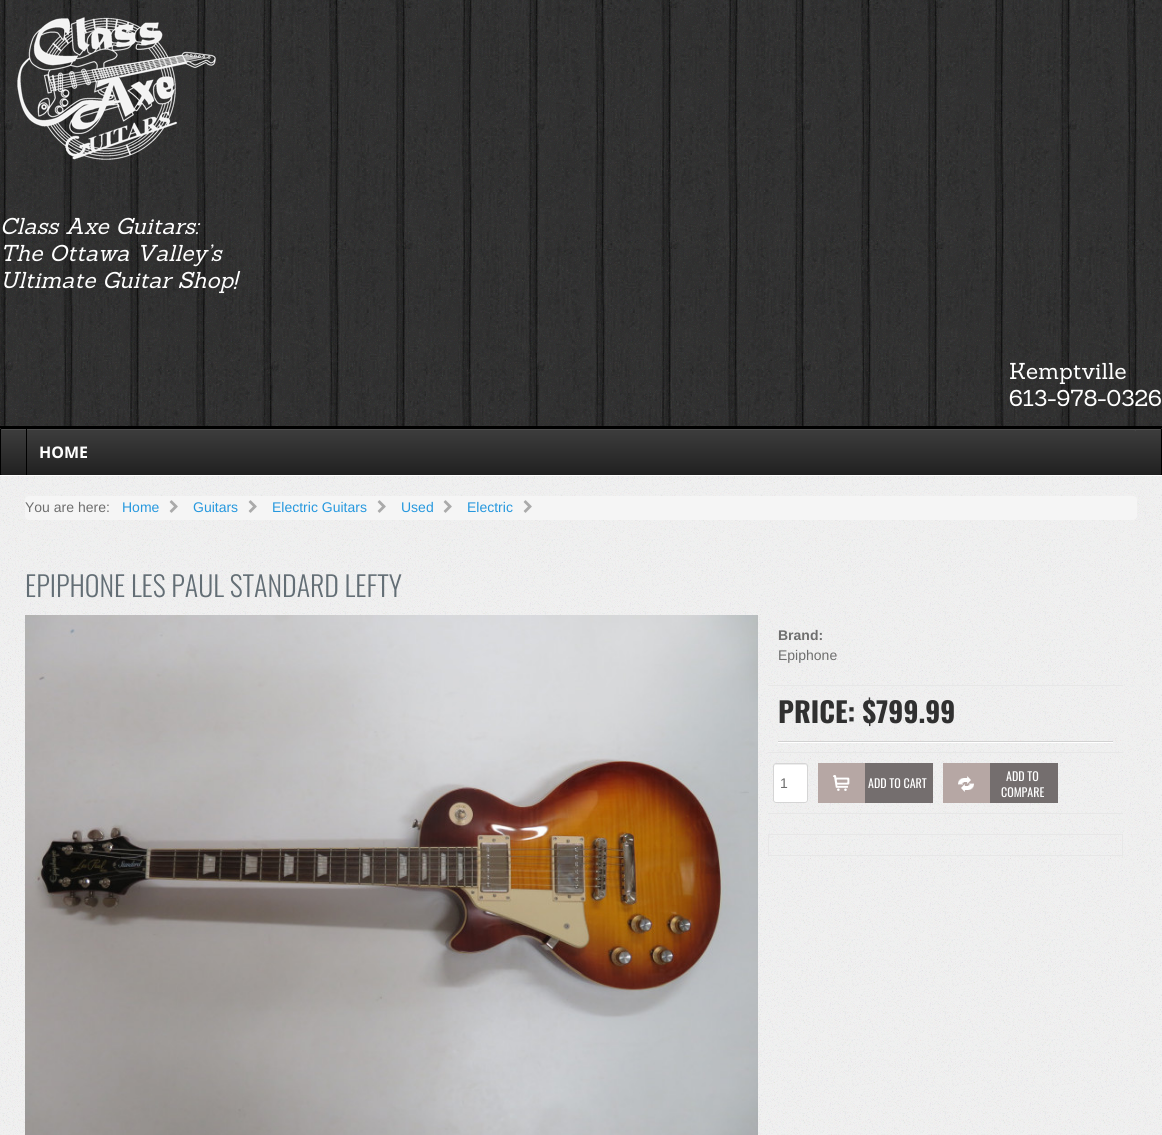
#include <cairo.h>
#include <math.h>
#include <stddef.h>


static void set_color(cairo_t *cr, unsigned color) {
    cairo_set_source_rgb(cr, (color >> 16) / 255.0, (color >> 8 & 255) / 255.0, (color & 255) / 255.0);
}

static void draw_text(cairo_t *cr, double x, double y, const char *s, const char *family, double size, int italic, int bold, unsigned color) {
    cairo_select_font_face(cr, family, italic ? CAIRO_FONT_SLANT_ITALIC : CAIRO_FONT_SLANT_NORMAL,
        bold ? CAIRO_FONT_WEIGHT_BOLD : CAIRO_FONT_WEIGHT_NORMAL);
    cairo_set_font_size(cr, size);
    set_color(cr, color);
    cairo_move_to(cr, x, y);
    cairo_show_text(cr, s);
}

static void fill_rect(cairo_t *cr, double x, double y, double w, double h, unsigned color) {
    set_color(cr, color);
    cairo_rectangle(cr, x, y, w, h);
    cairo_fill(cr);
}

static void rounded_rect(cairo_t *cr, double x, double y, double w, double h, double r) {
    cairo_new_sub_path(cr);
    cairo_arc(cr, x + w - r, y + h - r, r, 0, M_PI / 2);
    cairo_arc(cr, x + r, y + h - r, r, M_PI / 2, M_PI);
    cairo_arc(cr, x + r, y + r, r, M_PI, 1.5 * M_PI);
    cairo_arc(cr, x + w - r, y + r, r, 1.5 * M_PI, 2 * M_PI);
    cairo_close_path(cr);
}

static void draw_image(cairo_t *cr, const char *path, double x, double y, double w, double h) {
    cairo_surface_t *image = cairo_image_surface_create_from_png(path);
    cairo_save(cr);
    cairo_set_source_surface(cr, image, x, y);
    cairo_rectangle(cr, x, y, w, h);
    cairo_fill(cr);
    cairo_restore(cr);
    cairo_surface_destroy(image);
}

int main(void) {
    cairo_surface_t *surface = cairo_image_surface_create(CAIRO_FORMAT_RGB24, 1162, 1135);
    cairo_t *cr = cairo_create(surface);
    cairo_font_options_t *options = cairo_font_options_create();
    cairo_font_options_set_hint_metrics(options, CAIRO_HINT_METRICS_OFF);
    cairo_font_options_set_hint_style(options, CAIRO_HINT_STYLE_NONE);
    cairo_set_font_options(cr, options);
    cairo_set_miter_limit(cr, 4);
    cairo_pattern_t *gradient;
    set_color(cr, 0x000000);
    cairo_paint(cr);
    draw_image(cr, "assets/img1.png", 0, 0, 1162, 426);
    draw_image(cr, "assets/img2.png", 0, 0, 1162, 426);
    draw_image(cr, "assets/img3.png", 17, 17, 199, 143);
    draw_text(cr, 0, 234, "Class Axe Guitars:", "Sanchez", 22.4, 1, 0, 0xFFFFFF);
    draw_text(cr, 0, 261, "The Ottawa Valley’s", "Sanchez", 22.4, 1, 0, 0xFFFFFF);
    draw_text(cr, 0, 288, "Ultimate Guitar Shop!", "Sanchez", 22.4, 1, 0, 0xFFFFFF);
    draw_text(cr, 1009, 379, "Kemptville", "Sanchez", 22.4, 0, 0, 0xFFFFFF);
    draw_text(cr, 1009, 406, "613-978-0326", "Sanchez", 22.4, 0, 0, 0xFFFFFF);
    gradient = cairo_pattern_create_linear(581, 428, 581, 475);
    cairo_pattern_add_color_stop_rgba(gradient, 0, 0.129, 0.129, 0.129, 1);
    cairo_pattern_add_color_stop_rgba(gradient, 1, 0.298, 0.298, 0.298, 1);
    cairo_set_source(cr, gradient);
    cairo_pattern_destroy(gradient);
    cairo_rectangle(cr, 0, 428, 1162, 46);
    cairo_fill(cr);
    fill_rect(cr, 0, 475, 1162, 1, 0xFFFFFF);
    gradient = cairo_pattern_create_linear(581, 429, 581, 475);
    cairo_pattern_add_color_stop_rgba(gradient, 0, 0.239, 0.239, 0.239, 1);
    cairo_pattern_add_color_stop_rgba(gradient, 1, 0.129, 0.129, 0.129, 1);
    cairo_set_source(cr, gradient);
    cairo_pattern_destroy(gradient);
    cairo_new_path(cr);
    cairo_move_to(cr, 2, 429);
    cairo_line_to(cr, 1160, 429);
    cairo_curve_to(cr, 1161, 429, 1161, 429, 1161, 430);
    cairo_line_to(cr, 1161, 473);
    cairo_curve_to(cr, 1161, 474, 1161, 475, 1160, 475);
    cairo_line_to(cr, 2, 475);
    cairo_curve_to(cr, 1, 475, 1, 474, 1, 473);
    cairo_line_to(cr, 1, 430);
    cairo_curve_to(cr, 1, 429, 1, 429, 2, 429);
    cairo_close_path(cr);
    cairo_fill(cr);
    set_color(cr, 0x505050);
    cairo_new_path(cr);
    cairo_move_to(cr, 2, 430);
    cairo_line_to(cr, 1160, 430);
    cairo_curve_to(cr, 1161, 430, 1161, 430, 1161, 431);
    cairo_line_to(cr, 1161, 430);
    cairo_line_to(cr, 1160, 429);
    cairo_line_to(cr, 2, 429);
    cairo_line_to(cr, 1, 430);
    cairo_line_to(cr, 1, 431);
    cairo_curve_to(cr, 1, 430, 1, 430, 2, 430);
    cairo_close_path(cr);
    cairo_fill(cr);
    fill_rect(cr, 1, 428, 1160, 1, 0x000000);
    fill_rect(cr, 1161, 429, 1, 45, 0x000000);
    fill_rect(cr, 0, 429, 1, 45, 0x000000);
    gradient = cairo_pattern_create_linear(581, 429, 581, 475);
    cairo_pattern_add_color_stop_rgba(gradient, 0, 0.239, 0.239, 0.239, 1);
    cairo_pattern_add_color_stop_rgba(gradient, 1, 0.129, 0.129, 0.129, 1);
    cairo_set_source(cr, gradient);
    cairo_pattern_destroy(gradient);
    rounded_rect(cr, 26, 429, 1110, 46, 2);
    cairo_fill(cr);
    cairo_set_source_rgba(cr, 1, 1, 1, 0.1);
    cairo_new_path(cr);
    cairo_move_to(cr, 28, 430);
    cairo_line_to(cr, 1134, 430);
    cairo_curve_to(cr, 1135, 430, 1136, 431, 1136, 432);
    cairo_line_to(cr, 1136, 431);
    cairo_curve_to(cr, 1136, 430, 1135, 429, 1134, 429);
    cairo_line_to(cr, 28, 429);
    cairo_curve_to(cr, 27, 429, 26, 430, 26, 431);
    cairo_line_to(cr, 26, 432);
    cairo_curve_to(cr, 26, 431, 27, 430, 28, 430);
    cairo_close_path(cr);
    cairo_fill(cr);
    fill_rect(cr, 26, 429, 1, 46, 0x000000);
    draw_text(cr, 39, 458, "HOME", "Open Sans", 16, 0, 1, 0xFFFFFF);
    fill_rect(cr, 0, 476, 1162, 659, 0xF0F0F0);
    draw_image(cr, "assets/img4.png", 0, 476, 1162, 659);
    set_color(cr, 0xF5F5F5);
    rounded_rect(cr, 25, 496, 1112, 24, 4);
    cairo_fill(cr);
    draw_text(cr, 25, 512, "You are here:", "Liberation Sans", 14, 0, 0, 0x6E6E6E);
    draw_text(cr, 122, 512, "Home", "Liberation Sans", 14, 0, 0, 0x2698DE);
    draw_image(cr, "assets/img5.png", 169, 500, 9, 13);
    draw_text(cr, 193, 512, "Guitars", "Liberation Sans", 14, 0, 0, 0x2698DE);
    draw_image(cr, "assets/img5.png", 248, 500, 9, 13);
    draw_text(cr, 272, 512, "Electric Guitars", "Liberation Sans", 14, 0, 0, 0x2698DE);
    draw_image(cr, "assets/img5.png", 377, 500, 9, 13);
    draw_text(cr, 401, 512, "Used", "Liberation Sans", 14, 0, 0, 0x2698DE);
    draw_image(cr, "assets/img5.png", 443, 500, 9, 13);
    draw_text(cr, 467, 512, "Electric", "Liberation Sans", 14, 0, 0, 0x2698DE);
    draw_image(cr, "assets/img5.png", 523, 500, 9, 13);
    draw_text(cr, 25, 597, "EPIPHONE LES PAUL STANDARD LEFTY", "Oswald Light", 28, 0, 0, 0x636E75);
    draw_image(cr, "assets/img6.png", 25, 615, 733, 520);
    fill_rect(cr, 768, 685, 355, 1, 0xE7E7E7);
    draw_text(cr, 778, 640, "Brand:", "Liberation Sans", 14, 0, 1, 0x6E6E6E);
    draw_text(cr, 778, 660, "Epiphone", "Liberation Sans", 14, 0, 0, 0x6E6E6E);
    fill_rect(cr, 768, 752, 355, 1, 0xE7E7E7);
    fill_rect(cr, 778, 742, 335, 1, 0xFFFFFF);
    fill_rect(cr, 778, 741, 335, 1, 0xD1D1D1);
    draw_text(cr, 778, 723, "PRICE: $799.99", "Oswald", 28, 0, 1, 0x303030);
    fill_rect(cr, 768, 813, 355, 1, 0xE7E7E7);
    set_color(cr, 0xFFFFFF);
    rounded_rect(cr, 773, 763, 35, 40, 3);
    cairo_fill(cr);
    set_color(cr, 0xECECEC);
    cairo_new_path(cr);
    cairo_move_to(cr, 776, 764);
    cairo_curve_to(cr, 774, 764, 774, 765.5, 774, 767);
    cairo_line_to(cr, 775, 765);
    cairo_line_to(cr, 806, 765);
    cairo_line_to(cr, 807, 767);
    cairo_curve_to(cr, 807, 765.5, 807, 764, 805, 764);
    cairo_close_path(cr);
    cairo_fill(cr);
    rounded_rect(cr, 773.5, 763.5, 34, 39, 2.5);
    set_color(cr, 0xD5D5D5);
    cairo_set_line_width(cr, 1);
    cairo_stroke(cr);
    draw_text(cr, 780, 788, "1", "Liberation Sans", 14, 0, 0, 0x6E6E6E);
    fill_rect(cr, 865, 763, 68, 40, 0x746E6E);
    fill_rect(cr, 818, 763, 47, 40, 0xB6A7A4);
    draw_image(cr, "assets/img7.png", 833, 775, 17, 16);
    draw_text(cr, 868, 788, "ADD TO CART", "Oswald", 12, 0, 0, 0xFFFFFF);
    fill_rect(cr, 990, 763, 68, 40, 0x746E6E);
    fill_rect(cr, 943, 763, 47, 40, 0xB6A7A4);
    draw_image(cr, "assets/img8.png", 958, 776, 16, 16);
    draw_text(cr, 1006, 781, "ADD TO", "Oswald", 12, 0, 0, 0xFFFFFF);
    draw_text(cr, 1001, 797, "COMPARE", "Oswald", 12, 0, 0, 0xFFFFFF);
    cairo_rectangle(cr, 768.5, 834.5, 354, 21);
    set_color(cr, 0xE7E7E7);
    cairo_stroke(cr);
    cairo_surface_write_to_png(surface, "output.png");
    cairo_font_options_destroy(options);
    cairo_destroy(cr);
    cairo_surface_destroy(surface);
    return 0;
}
